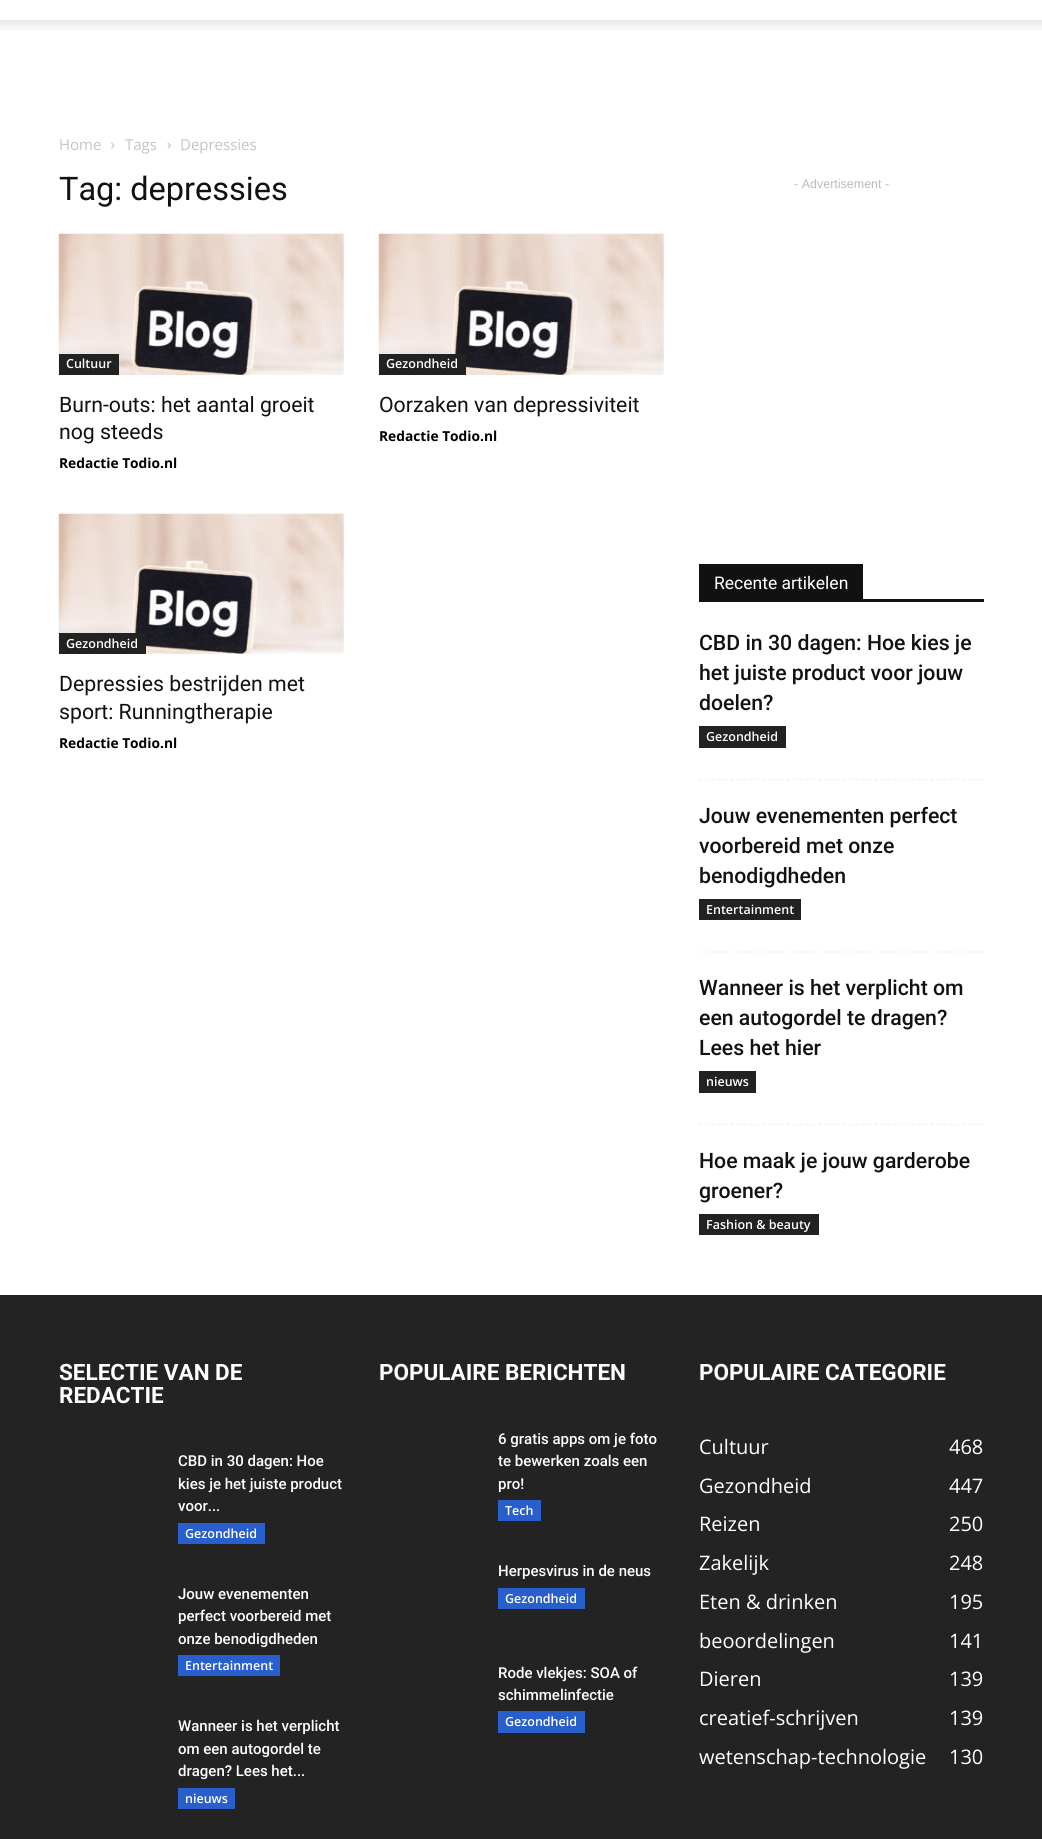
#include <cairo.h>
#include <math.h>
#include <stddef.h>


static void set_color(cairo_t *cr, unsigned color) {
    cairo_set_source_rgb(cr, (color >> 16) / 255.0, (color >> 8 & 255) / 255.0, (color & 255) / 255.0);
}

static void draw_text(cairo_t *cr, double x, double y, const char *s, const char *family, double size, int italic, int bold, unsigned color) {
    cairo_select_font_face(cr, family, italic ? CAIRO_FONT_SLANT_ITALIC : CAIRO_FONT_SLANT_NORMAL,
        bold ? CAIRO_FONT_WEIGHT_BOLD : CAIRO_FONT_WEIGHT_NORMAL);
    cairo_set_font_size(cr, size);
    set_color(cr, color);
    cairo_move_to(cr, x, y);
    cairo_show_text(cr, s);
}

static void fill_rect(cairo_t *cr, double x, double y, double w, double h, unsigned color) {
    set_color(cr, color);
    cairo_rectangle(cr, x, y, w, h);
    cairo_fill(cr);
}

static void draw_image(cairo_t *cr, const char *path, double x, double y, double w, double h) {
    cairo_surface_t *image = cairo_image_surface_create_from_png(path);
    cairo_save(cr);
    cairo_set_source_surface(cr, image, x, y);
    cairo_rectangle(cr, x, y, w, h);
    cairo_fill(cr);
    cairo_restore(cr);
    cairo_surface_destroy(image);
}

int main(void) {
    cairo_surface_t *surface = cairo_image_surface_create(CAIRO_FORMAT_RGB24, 1042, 1839);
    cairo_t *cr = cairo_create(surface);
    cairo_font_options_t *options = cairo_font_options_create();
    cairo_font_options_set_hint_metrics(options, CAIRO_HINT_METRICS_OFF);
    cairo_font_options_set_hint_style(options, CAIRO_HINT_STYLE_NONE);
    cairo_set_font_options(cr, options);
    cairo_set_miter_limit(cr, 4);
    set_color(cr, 0xFFFFFF);
    cairo_paint(cr);
    draw_image(cr, "assets/img1.png", 0, 20, 1042, 11);
    draw_text(cr, 59, 150, "Home", "Open Sans", 15, 0, 0, 0xC3C3C3);
    draw_image(cr, "assets/img2.png", 111, 142, 4, 7);
    draw_text(cr, 125, 150, "Tags", "Open Sans", 15, 0, 0, 0xC3C3C3);
    draw_image(cr, "assets/img3.png", 167, 142, 4, 7);
    draw_text(cr, 180, 150, "Depressies", "Open Sans", 15, 0, 0, 0xC3C3C3);
    draw_text(cr, 59, 200, "Tag: depressies", "Roboto", 32.5, 0, 0, 0x111111);
    draw_image(cr, "assets/img4.png", 58, 233, 286, 142);
    fill_rect(cr, 59, 354, 60, 21, 0x222222);
    draw_text(cr, 66, 368, "Cultuur", "Open Sans SemiBold", 12.5, 0, 0, 0xFFFFFF);
    draw_text(cr, 59, 412, "Burn-outs: het aantal groeit", "Roboto", 21.25, 0, 0, 0x111111);
    draw_text(cr, 59, 439, "nog steeds", "Roboto", 21.25, 0, 0, 0x111111);
    draw_text(cr, 59, 468, "Redactie Todio.nl", "Open Sans", 13.75, 0, 1, 0x000000);
    draw_image(cr, "assets/img4.png", 378, 233, 286, 142);
    fill_rect(cr, 379, 354, 87, 21, 0x222222);
    draw_text(cr, 386, 368, "Gezondheid", "Open Sans SemiBold", 12.5, 0, 0, 0xFFFFFF);
    draw_text(cr, 379, 412, "Oorzaken van depressiviteit", "Roboto", 21.25, 0, 0, 0x111111);
    draw_text(cr, 379, 441, "Redactie Todio.nl", "Open Sans", 13.75, 0, 1, 0x000000);
    draw_image(cr, "assets/img5.png", 58, 513, 286, 141);
    fill_rect(cr, 59, 633, 87, 21, 0x222222);
    draw_text(cr, 66, 648, "Gezondheid", "Open Sans SemiBold", 12.5, 0, 0, 0xFFFFFF);
    draw_text(cr, 59, 691, "Depressies bestrijden met", "Roboto", 21.25, 0, 0, 0x111111);
    draw_text(cr, 59, 719, "sport: Runningtherapie", "Roboto", 21.25, 0, 0, 0x111111);
    draw_text(cr, 59, 748, "Redactie Todio.nl", "Open Sans", 13.75, 0, 1, 0x000000);
    draw_text(cr, 794, 188, "- Advertisement -", "Liberation Sans", 12.5, 0, 0, 0xBBBBBB);
    fill_rect(cr, 699, 599, 285, 3, 0x111111);
    fill_rect(cr, 699, 564, 164, 35, 0x111111);
    draw_text(cr, 714, 589, "Recente artikelen", "Roboto", 17.5, 0, 0, 0xFFFFFF);
    cairo_new_path(cr);
    cairo_move_to(cr, 699, 779.5);
    cairo_line_to(cr, 984, 779.5);
    set_color(cr, 0xF2F2F2);
    cairo_set_line_width(cr, 1.2);
    cairo_set_dash(cr, (double[]){3.75, 2.5}, 2, 0);
    cairo_stroke(cr);
    draw_text(cr, 699, 650, "CBD in 30 dagen: Hoe kies je", "Roboto Medium", 21.25, 0, 0, 0x111111);
    draw_text(cr, 699, 680, "het juiste product voor jouw", "Roboto Medium", 21.25, 0, 0, 0x111111);
    draw_text(cr, 699, 710, "doelen?", "Roboto Medium", 21.25, 0, 0, 0x111111);
    fill_rect(cr, 699, 726, 87, 22, 0x222222);
    draw_text(cr, 706, 741, "Gezondheid", "Open Sans SemiBold", 12.5, 0, 0, 0xFFFFFF);
    cairo_new_path(cr);
    cairo_move_to(cr, 699, 952);
    cairo_line_to(cr, 984, 952);
    set_color(cr, 0xF2F2F2);
    cairo_stroke(cr);
    draw_text(cr, 699, 823, "Jouw evenementen perfect", "Roboto Medium", 21.25, 0, 0, 0x111111);
    draw_text(cr, 699, 853, "voorbereid met onze", "Roboto Medium", 21.25, 0, 0, 0x111111);
    draw_text(cr, 699, 883, "benodigdheden", "Roboto Medium", 21.25, 0, 0, 0x111111);
    fill_rect(cr, 699, 899, 102, 21, 0x222222);
    draw_text(cr, 706, 914, "Entertainment", "Open Sans SemiBold", 12.5, 0, 0, 0xFFFFFF);
    cairo_new_path(cr);
    cairo_move_to(cr, 699, 1124.5);
    cairo_line_to(cr, 984, 1124.5);
    set_color(cr, 0xF2F2F2);
    cairo_stroke(cr);
    draw_text(cr, 699, 995, "Wanneer is het verplicht om", "Roboto Medium", 21.25, 0, 0, 0x111111);
    draw_text(cr, 699, 1025, "een autogordel te dragen?", "Roboto Medium", 21.25, 0, 0, 0x111111);
    draw_text(cr, 699, 1055, "Lees het hier", "Roboto Medium", 21.25, 0, 0, 0x111111);
    fill_rect(cr, 699, 1071, 57, 22, 0x222222);
    draw_text(cr, 706, 1086, "nieuws", "Open Sans SemiBold", 12.5, 0, 0, 0xFFFFFF);
    draw_text(cr, 699, 1168, "Hoe maak je jouw garderobe", "Roboto Medium", 21.25, 0, 0, 0x111111);
    draw_text(cr, 699, 1198, "groener?", "Roboto Medium", 21.25, 0, 0, 0x111111);
    fill_rect(cr, 699, 1214, 120, 21, 0x222222);
    draw_text(cr, 706, 1229, "Fashion & beauty", "Open Sans SemiBold", 12.5, 0, 0, 0xFFFFFF);
    fill_rect(cr, 0, 1295, 1042, 544, 0x232323);
    draw_text(cr, 59, 1380, "SELECTIE VAN DE", "Roboto", 22.5, 0, 1, 0xFFFFFF);
    draw_text(cr, 59, 1403, "REDACTIE", "Roboto", 22.5, 0, 1, 0xFFFFFF);
    draw_text(cr, 178, 1466, "CBD in 30 dagen: Hoe", "Roboto Medium", 15, 0, 0, 0xFFFFFF);
    draw_text(cr, 178, 1489, "kies je het juiste product", "Roboto Medium", 15, 0, 0, 0xFFFFFF);
    draw_text(cr, 178, 1511, "voor...", "Roboto Medium", 15, 0, 0, 0xFFFFFF);
    fill_rect(cr, 178, 1523, 87, 21, 0x295FCC);
    draw_text(cr, 185, 1538, "Gezondheid", "Open Sans SemiBold", 12.5, 0, 0, 0xFFFFFF);
    draw_text(cr, 178, 1599, "Jouw evenementen", "Roboto Medium", 15, 0, 0, 0xFFFFFF);
    draw_text(cr, 178, 1621, "perfect voorbereid met", "Roboto Medium", 15, 0, 0, 0xFFFFFF);
    draw_text(cr, 178, 1644, "onze benodigdheden", "Roboto Medium", 15, 0, 0, 0xFFFFFF);
    fill_rect(cr, 178, 1655, 102, 21, 0x295FCC);
    draw_text(cr, 185, 1670, "Entertainment", "Open Sans SemiBold", 12.5, 0, 0, 0xFFFFFF);
    draw_text(cr, 178, 1731, "Wanneer is het verplicht", "Roboto Medium", 15, 0, 0, 0xFFFFFF);
    draw_text(cr, 178, 1754, "om een autogordel te", "Roboto Medium", 15, 0, 0, 0xFFFFFF);
    draw_text(cr, 178, 1776, "dragen? Lees het...", "Roboto Medium", 15, 0, 0, 0xFFFFFF);
    fill_rect(cr, 178, 1788, 57, 21, 0x295FCC);
    draw_text(cr, 185, 1803, "nieuws", "Open Sans SemiBold", 12.5, 0, 0, 0xFFFFFF);
    draw_text(cr, 379, 1380, "POPULAIRE BERICHTEN", "Roboto", 22.5, 0, 1, 0xFFFFFF);
    draw_text(cr, 498, 1444, "6 gratis apps om je foto", "Roboto Medium", 15, 0, 0, 0xFFFFFF);
    draw_text(cr, 498, 1466, "te bewerken zoals een", "Roboto Medium", 15, 0, 0, 0xFFFFFF);
    draw_text(cr, 498, 1489, "pro!", "Roboto Medium", 15, 0, 0, 0xFFFFFF);
    fill_rect(cr, 498, 1500, 43, 21, 0x295FCC);
    draw_text(cr, 505, 1515, "Tech", "Open Sans SemiBold", 12.5, 0, 0, 0xFFFFFF);
    draw_text(cr, 498, 1576, "Herpesvirus in de neus", "Roboto Medium", 15, 0, 0, 0xFFFFFF);
    fill_rect(cr, 498, 1588, 87, 21, 0x295FCC);
    draw_text(cr, 505, 1603, "Gezondheid", "Open Sans SemiBold", 12.5, 0, 0, 0xFFFFFF);
    draw_text(cr, 498, 1678, "Rode vlekjes: SOA of", "Roboto Medium", 15, 0, 0, 0xFFFFFF);
    draw_text(cr, 498, 1700, "schimmelinfectie", "Roboto Medium", 15, 0, 0, 0xFFFFFF);
    fill_rect(cr, 498, 1711, 87, 22, 0x295FCC);
    draw_text(cr, 505, 1726, "Gezondheid", "Open Sans SemiBold", 12.5, 0, 0, 0xFFFFFF);
    draw_text(cr, 699, 1380, "POPULAIRE CATEGORIE", "Roboto", 22.5, 0, 1, 0xFFFFFF);
    draw_text(cr, 699, 1454, "Cultuur", "Open Sans", 20, 0, 0, 0xFFFFFF);
    draw_text(cr, 949, 1454, "468", "Open Sans", 20, 0, 0, 0xFFFFFF);
    draw_text(cr, 699, 1493, "Gezondheid", "Open Sans", 20, 0, 0, 0xFFFFFF);
    draw_text(cr, 949, 1493, "447", "Open Sans", 20, 0, 0, 0xFFFFFF);
    draw_text(cr, 699, 1531, "Reizen", "Open Sans", 20, 0, 0, 0xFFFFFF);
    draw_text(cr, 949, 1531, "250", "Open Sans", 20, 0, 0, 0xFFFFFF);
    draw_text(cr, 699, 1570, "Zakelijk", "Open Sans", 20, 0, 0, 0xFFFFFF);
    draw_text(cr, 949, 1570, "248", "Open Sans", 20, 0, 0, 0xFFFFFF);
    draw_text(cr, 699, 1609, "Eten & drinken", "Open Sans", 20, 0, 0, 0xFFFFFF);
    draw_text(cr, 949, 1609, "195", "Open Sans", 20, 0, 0, 0xFFFFFF);
    draw_text(cr, 699, 1648, "beoordelingen", "Open Sans", 20, 0, 0, 0xFFFFFF);
    draw_text(cr, 949, 1648, "141", "Open Sans", 20, 0, 0, 0xFFFFFF);
    draw_text(cr, 699, 1686, "Dieren", "Open Sans", 20, 0, 0, 0xFFFFFF);
    draw_text(cr, 949, 1686, "139", "Open Sans", 20, 0, 0, 0xFFFFFF);
    draw_text(cr, 699, 1725, "creatief-schrijven", "Open Sans", 20, 0, 0, 0xFFFFFF);
    draw_text(cr, 949, 1725, "139", "Open Sans", 20, 0, 0, 0xFFFFFF);
    draw_text(cr, 699, 1764, "wetenschap-technologie", "Open Sans", 20, 0, 0, 0xFFFFFF);
    draw_text(cr, 949, 1764, "130", "Open Sans", 20, 0, 0, 0xFFFFFF);
    cairo_surface_write_to_png(surface, "output.png");
    cairo_font_options_destroy(options);
    cairo_destroy(cr);
    cairo_surface_destroy(surface);
    return 0;
}
